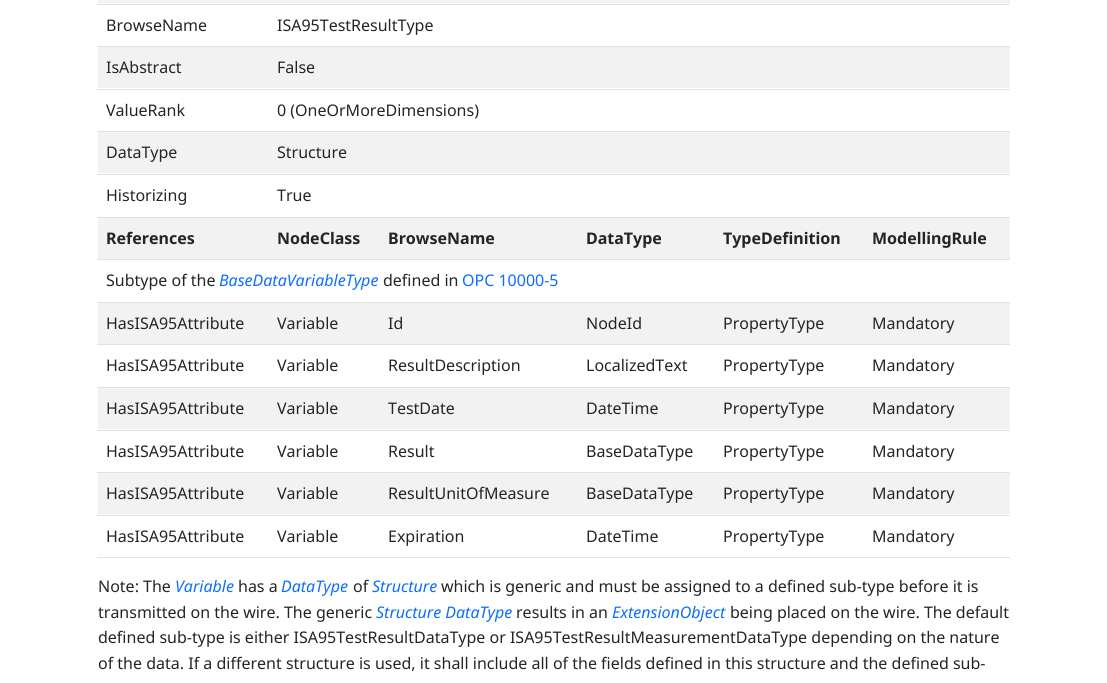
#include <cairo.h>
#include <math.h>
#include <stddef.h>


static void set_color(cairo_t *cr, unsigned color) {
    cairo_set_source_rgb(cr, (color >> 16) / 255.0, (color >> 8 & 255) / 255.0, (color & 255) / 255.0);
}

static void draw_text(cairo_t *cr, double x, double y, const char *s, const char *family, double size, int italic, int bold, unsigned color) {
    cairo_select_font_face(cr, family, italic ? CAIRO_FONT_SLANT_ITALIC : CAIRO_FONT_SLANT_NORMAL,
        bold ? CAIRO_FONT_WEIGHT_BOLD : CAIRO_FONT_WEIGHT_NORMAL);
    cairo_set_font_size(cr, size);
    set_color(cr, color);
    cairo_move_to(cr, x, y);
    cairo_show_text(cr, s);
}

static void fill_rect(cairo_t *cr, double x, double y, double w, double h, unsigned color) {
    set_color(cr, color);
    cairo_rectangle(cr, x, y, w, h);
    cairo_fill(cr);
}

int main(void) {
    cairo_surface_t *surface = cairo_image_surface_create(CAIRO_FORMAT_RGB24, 1107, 683);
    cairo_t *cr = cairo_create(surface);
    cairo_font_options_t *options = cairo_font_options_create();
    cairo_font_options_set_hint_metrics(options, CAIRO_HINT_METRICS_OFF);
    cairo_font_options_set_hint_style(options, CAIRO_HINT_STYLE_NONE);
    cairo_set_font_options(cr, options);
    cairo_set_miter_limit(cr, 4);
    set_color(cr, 0xFFFFFF);
    cairo_paint(cr);
    fill_rect(cr, 98, 0, 912, 3, 0xF2F2F2);
    fill_rect(cr, 97, 4, 913, 1, 0xDEE2E6);
    draw_text(cr, 106, 31, "BrowseName", "Noto Sans", 16, 0, 0, 0x212529);
    fill_rect(cr, 97, 46, 913, 1, 0xDEE2E6);
    draw_text(cr, 277, 31, "ISA95TestResultType", "Noto Sans", 16, 0, 0, 0x212529);
    fill_rect(cr, 98, 47, 912, 41, 0xF2F2F2);
    draw_text(cr, 106, 73, "IsAbstract", "Noto Sans", 16, 0, 0, 0x212529);
    fill_rect(cr, 97, 89, 913, 1, 0xDEE2E6);
    draw_text(cr, 277, 73, "False", "Noto Sans", 16, 0, 0, 0x212529);
    draw_text(cr, 106, 116, "ValueRank", "Noto Sans", 16, 0, 0, 0x212529);
    fill_rect(cr, 97, 131, 913, 1, 0xDEE2E6);
    draw_text(cr, 277, 116, "0 (OneOrMoreDimensions)", "Noto Sans", 16, 0, 0, 0x212529);
    fill_rect(cr, 98, 132, 912, 41, 0xF2F2F2);
    draw_text(cr, 106, 158, "DataType", "Noto Sans", 16, 0, 0, 0x212529);
    fill_rect(cr, 97, 174, 913, 1, 0xDEE2E6);
    draw_text(cr, 277, 158, "Structure", "Noto Sans", 16, 0, 0, 0x212529);
    draw_text(cr, 106, 201, "Historizing", "Noto Sans", 16, 0, 0, 0x212529);
    fill_rect(cr, 97, 217, 913, 1, 0xDEE2E6);
    draw_text(cr, 277, 201, "True", "Noto Sans", 16, 0, 0, 0x212529);
    fill_rect(cr, 98, 218, 912, 41, 0xF2F2F2);
    draw_text(cr, 106, 244, "References", "Noto Sans", 16, 0, 1, 0x212529);
    draw_text(cr, 277, 244, "NodeClass", "Noto Sans", 16, 0, 1, 0x212529);
    draw_text(cr, 388, 244, "BrowseName", "Noto Sans", 16, 0, 1, 0x212529);
    draw_text(cr, 586, 244, "DataType", "Noto Sans", 16, 0, 1, 0x212529);
    draw_text(cr, 723, 244, "TypeDefinition", "Noto Sans", 16, 0, 1, 0x212529);
    fill_rect(cr, 97, 259, 913, 1, 0xDEE2E6);
    draw_text(cr, 872, 244, "ModellingRule", "Noto Sans", 16, 0, 1, 0x212529);
    fill_rect(cr, 97, 302, 913, 1, 0xDEE2E6);
    draw_text(cr, 106, 286, "Subtype of the", "Noto Sans", 16, 0, 0, 0x212529);
    draw_text(cr, 219, 286, "BaseDataVariableType", "Noto Sans", 16, 1, 0, 0x0D6EFD);
    draw_text(cr, 383, 286, "defined in", "Noto Sans", 16, 0, 0, 0x212529);
    draw_text(cr, 462, 286, "OPC 10000-5", "Noto Sans", 16, 0, 0, 0x0D6EFD);
    fill_rect(cr, 98, 303, 912, 41, 0xF2F2F2);
    draw_text(cr, 106, 329, "HasISA95Attribute", "Noto Sans", 16, 0, 0, 0x212529);
    draw_text(cr, 277, 329, "Variable", "Noto Sans", 16, 0, 0, 0x212529);
    draw_text(cr, 388, 329, "Id", "Noto Sans", 16, 0, 0, 0x212529);
    draw_text(cr, 586, 329, "NodeId", "Noto Sans", 16, 0, 0, 0x212529);
    draw_text(cr, 723, 329, "PropertyType", "Noto Sans", 16, 0, 0, 0x212529);
    fill_rect(cr, 97, 344, 913, 1, 0xDEE2E6);
    draw_text(cr, 872, 329, "Mandatory", "Noto Sans", 16, 0, 0, 0x212529);
    draw_text(cr, 106, 371, "HasISA95Attribute", "Noto Sans", 16, 0, 0, 0x212529);
    draw_text(cr, 277, 371, "Variable", "Noto Sans", 16, 0, 0, 0x212529);
    draw_text(cr, 388, 371, "ResultDescription", "Noto Sans", 16, 0, 0, 0x212529);
    draw_text(cr, 586, 371, "LocalizedText", "Noto Sans", 16, 0, 0, 0x212529);
    draw_text(cr, 723, 371, "PropertyType", "Noto Sans", 16, 0, 0, 0x212529);
    fill_rect(cr, 97, 387, 913, 1, 0xDEE2E6);
    draw_text(cr, 872, 371, "Mandatory", "Noto Sans", 16, 0, 0, 0x212529);
    fill_rect(cr, 98, 388, 912, 41, 0xF2F2F2);
    draw_text(cr, 106, 414, "HasISA95Attribute", "Noto Sans", 16, 0, 0, 0x212529);
    draw_text(cr, 277, 414, "Variable", "Noto Sans", 16, 0, 0, 0x212529);
    draw_text(cr, 388, 414, "TestDate", "Noto Sans", 16, 0, 0, 0x212529);
    draw_text(cr, 586, 414, "DateTime", "Noto Sans", 16, 0, 0, 0x212529);
    draw_text(cr, 723, 414, "PropertyType", "Noto Sans", 16, 0, 0, 0x212529);
    fill_rect(cr, 97, 430, 913, 1, 0xDEE2E6);
    draw_text(cr, 872, 414, "Mandatory", "Noto Sans", 16, 0, 0, 0x212529);
    draw_text(cr, 106, 457, "HasISA95Attribute", "Noto Sans", 16, 0, 0, 0x212529);
    draw_text(cr, 277, 457, "Variable", "Noto Sans", 16, 0, 0, 0x212529);
    draw_text(cr, 388, 457, "Result", "Noto Sans", 16, 0, 0, 0x212529);
    draw_text(cr, 586, 457, "BaseDataType", "Noto Sans", 16, 0, 0, 0x212529);
    draw_text(cr, 723, 457, "PropertyType", "Noto Sans", 16, 0, 0, 0x212529);
    fill_rect(cr, 97, 472, 913, 1, 0xDEE2E6);
    draw_text(cr, 872, 457, "Mandatory", "Noto Sans", 16, 0, 0, 0x212529);
    fill_rect(cr, 98, 473, 912, 41, 0xF2F2F2);
    draw_text(cr, 106, 499, "HasISA95Attribute", "Noto Sans", 16, 0, 0, 0x212529);
    draw_text(cr, 277, 499, "Variable", "Noto Sans", 16, 0, 0, 0x212529);
    draw_text(cr, 388, 499, "ResultUnitOfMeasure", "Noto Sans", 16, 0, 0, 0x212529);
    draw_text(cr, 586, 499, "BaseDataType", "Noto Sans", 16, 0, 0, 0x212529);
    draw_text(cr, 723, 499, "PropertyType", "Noto Sans", 16, 0, 0, 0x212529);
    fill_rect(cr, 97, 515, 913, 1, 0xDEE2E6);
    draw_text(cr, 872, 499, "Mandatory", "Noto Sans", 16, 0, 0, 0x212529);
    draw_text(cr, 106, 542, "HasISA95Attribute", "Noto Sans", 16, 0, 0, 0x212529);
    draw_text(cr, 277, 542, "Variable", "Noto Sans", 16, 0, 0, 0x212529);
    draw_text(cr, 388, 542, "Expiration", "Noto Sans", 16, 0, 0, 0x212529);
    draw_text(cr, 586, 542, "DateTime", "Noto Sans", 16, 0, 0, 0x212529);
    draw_text(cr, 723, 542, "PropertyType", "Noto Sans", 16, 0, 0, 0x212529);
    fill_rect(cr, 97, 557, 913, 1, 0xDEE2E6);
    draw_text(cr, 872, 542, "Mandatory", "Noto Sans", 16, 0, 0, 0x212529);
    draw_text(cr, 98, 592, "Note: The", "Noto Sans", 16, 0, 0, 0x212529);
    draw_text(cr, 175, 592, "Variable", "Noto Sans", 16, 1, 0, 0x0D6EFD);
    draw_text(cr, 238, 592, "has a", "Noto Sans", 16, 0, 0, 0x212529);
    draw_text(cr, 281, 592, "DataType", "Noto Sans", 16, 1, 0, 0x0D6EFD);
    draw_text(cr, 353, 592, "of", "Noto Sans", 16, 0, 0, 0x212529);
    draw_text(cr, 372, 592, "Structure", "Noto Sans", 16, 1, 0, 0x0D6EFD);
    draw_text(cr, 441, 592, "which is generic and must be assigned to a defined sub-type before it is", "Noto Sans", 16, 0, 0, 0x212529);
    draw_text(cr, 98, 618, "transmitted on the wire. The generic", "Noto Sans", 16, 0, 0, 0x212529);
    draw_text(cr, 376, 618, "Structure DataType", "Noto Sans", 16, 1, 0, 0x0D6EFD);
    draw_text(cr, 516, 618, "results in an", "Noto Sans", 16, 0, 0, 0x212529);
    draw_text(cr, 612, 618, "ExtensionObject", "Noto Sans", 16, 1, 0, 0x0D6EFD);
    draw_text(cr, 730, 618, "being placed on the wire. The default", "Noto Sans", 16, 0, 0, 0x212529);
    draw_text(cr, 98, 643, "defined sub-type is either ISA95TestResultDataType or ISA95TestResultMeasurementDataType depending on the nature", "Noto Sans", 16, 0, 0, 0x212529);
    draw_text(cr, 98, 669, "of the data. If a different structure is used, it shall include all of the fields defined in this structure and the defined sub-", "Noto Sans", 16, 0, 0, 0x212529);
    cairo_surface_write_to_png(surface, "output.png");
    cairo_font_options_destroy(options);
    cairo_destroy(cr);
    cairo_surface_destroy(surface);
    return 0;
}
